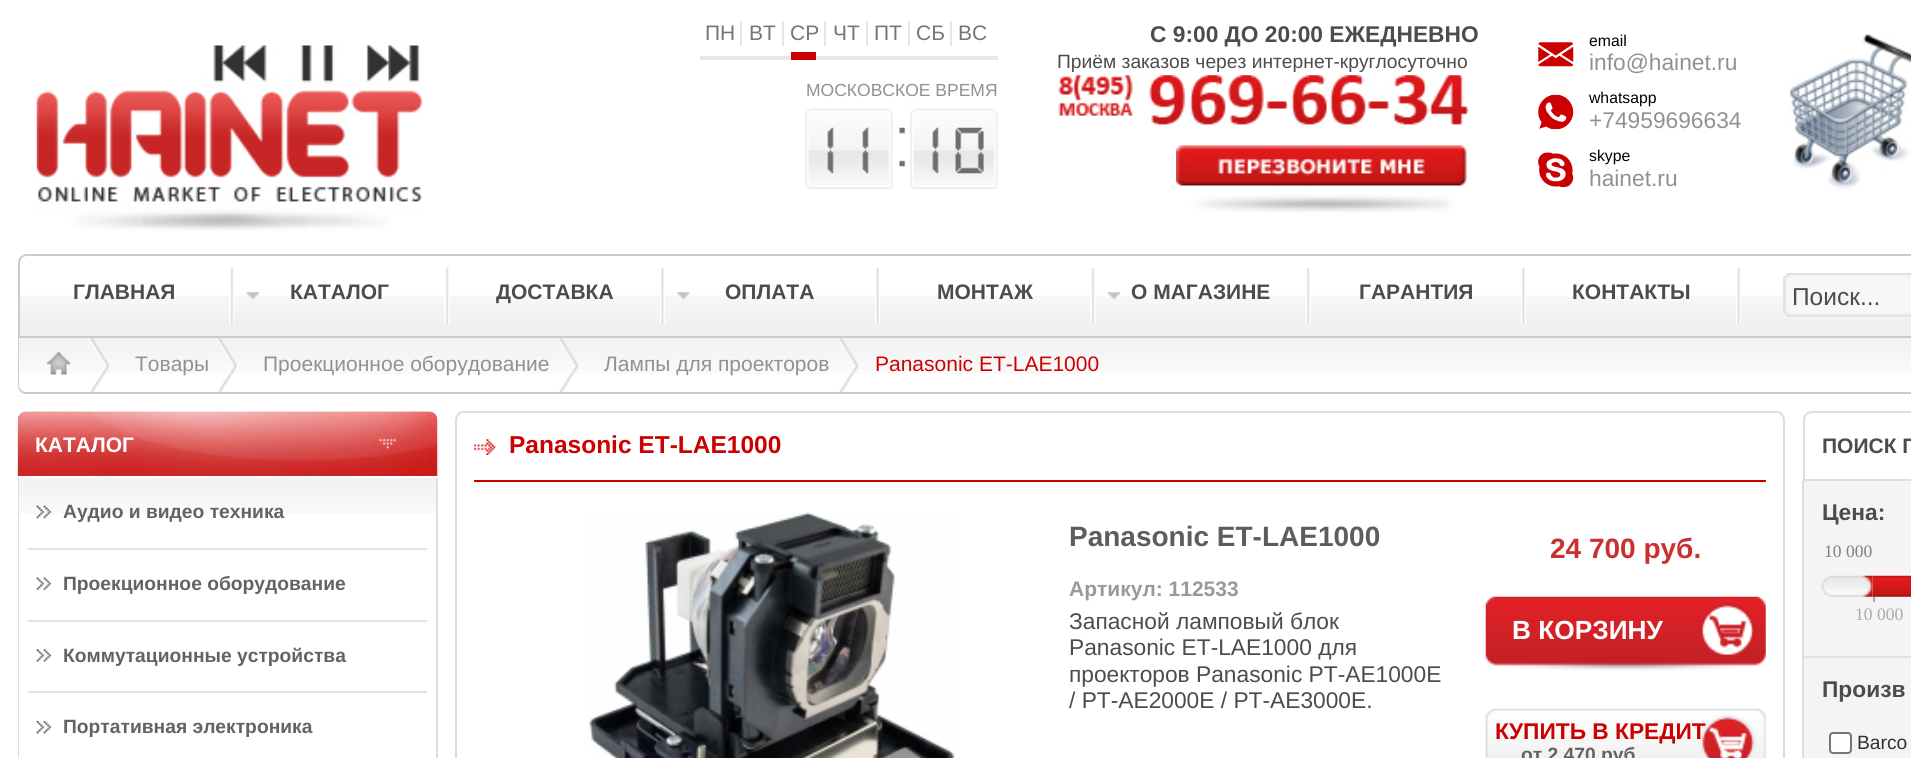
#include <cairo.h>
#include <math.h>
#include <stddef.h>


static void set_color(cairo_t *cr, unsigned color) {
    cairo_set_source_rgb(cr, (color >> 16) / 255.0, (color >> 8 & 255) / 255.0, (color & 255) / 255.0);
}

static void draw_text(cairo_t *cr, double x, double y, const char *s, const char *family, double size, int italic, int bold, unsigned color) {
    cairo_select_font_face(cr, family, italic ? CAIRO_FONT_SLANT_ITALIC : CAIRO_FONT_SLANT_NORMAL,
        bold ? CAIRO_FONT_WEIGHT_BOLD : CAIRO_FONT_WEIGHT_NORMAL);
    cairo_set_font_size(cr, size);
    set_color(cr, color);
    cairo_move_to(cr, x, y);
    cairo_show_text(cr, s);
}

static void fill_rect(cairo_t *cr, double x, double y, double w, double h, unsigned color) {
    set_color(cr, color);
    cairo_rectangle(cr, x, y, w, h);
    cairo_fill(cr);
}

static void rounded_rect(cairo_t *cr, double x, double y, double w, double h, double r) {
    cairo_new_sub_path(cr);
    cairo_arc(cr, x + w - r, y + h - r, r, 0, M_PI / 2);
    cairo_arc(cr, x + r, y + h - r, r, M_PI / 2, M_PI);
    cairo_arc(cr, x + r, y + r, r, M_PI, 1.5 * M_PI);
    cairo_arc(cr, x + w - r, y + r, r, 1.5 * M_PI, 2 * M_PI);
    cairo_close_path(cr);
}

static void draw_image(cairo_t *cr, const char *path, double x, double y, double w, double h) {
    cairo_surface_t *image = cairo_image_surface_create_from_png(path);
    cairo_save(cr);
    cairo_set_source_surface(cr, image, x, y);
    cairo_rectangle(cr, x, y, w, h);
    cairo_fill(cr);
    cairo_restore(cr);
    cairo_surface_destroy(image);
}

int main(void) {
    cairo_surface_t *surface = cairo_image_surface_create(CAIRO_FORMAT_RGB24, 1911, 758);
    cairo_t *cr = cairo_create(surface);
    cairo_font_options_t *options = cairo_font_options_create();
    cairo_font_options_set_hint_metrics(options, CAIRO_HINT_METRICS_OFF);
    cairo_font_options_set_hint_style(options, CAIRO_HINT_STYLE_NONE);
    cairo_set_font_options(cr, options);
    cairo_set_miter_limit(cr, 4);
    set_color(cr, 0xFFFFFF);
    cairo_paint(cr);
    draw_image(cr, "assets/img1.png", 36, 45, 386, 186);
    fill_rect(cr, 700, 56, 298, 4, 0xE8E8E8);
    fill_rect(cr, 791, 52, 25, 8, 0xCC0001);
    fill_rect(cr, 740, 21, 2, 25, 0xE5E5E5);
    draw_text(cr, 705, 40, "ПН", "Liberation Sans", 21, 0, 0, 0x767676);
    fill_rect(cr, 782, 21, 2, 25, 0xE5E5E5);
    draw_text(cr, 749, 40, "ВТ", "Liberation Sans", 21, 0, 0, 0x767676);
    fill_rect(cr, 824, 21, 2, 25, 0xE5E5E5);
    draw_text(cr, 790, 40, "СР", "Liberation Sans", 21, 0, 0, 0x767676);
    fill_rect(cr, 866, 21, 2, 25, 0xE5E5E5);
    draw_text(cr, 833, 40, "ЧТ", "Liberation Sans", 21, 0, 0, 0x767676);
    fill_rect(cr, 908, 21, 2, 25, 0xE5E5E5);
    draw_text(cr, 874, 40, "ПТ", "Liberation Sans", 21, 0, 0, 0x767676);
    fill_rect(cr, 950, 21, 2, 25, 0xE5E5E5);
    draw_text(cr, 916, 40, "СБ", "Liberation Sans", 21, 0, 0, 0x767676);
    draw_text(cr, 958, 40, "ВС", "Liberation Sans", 21, 0, 0, 0x767676);
    draw_text(cr, 806, 96, "МОСКОВСКОЕ ВРЕМЯ", "Liberation Sans", 17.5, 0, 0, 0x919191);
    draw_image(cr, "assets/img2.png", 805, 108, 88, 81);
    draw_image(cr, "assets/img3.png", 827, 127, 7, 47);
    draw_image(cr, "assets/img3.png", 862, 127, 7, 47);
    draw_image(cr, "assets/img4.png", 899, 127, 6, 40);
    draw_image(cr, "assets/img2.png", 910, 108, 88, 81);
    draw_image(cr, "assets/img3.png", 932, 127, 7, 47);
    draw_image(cr, "assets/img5.png", 955, 127, 29, 47);
    draw_text(cr, 1150, 42, "С 9:00 ДО 20:00 ЕЖЕДНЕВНО", "Liberation Sans", 22.75, 0, 1, 0x4C4C4C);
    draw_text(cr, 1057, 68, "Приём заказов через интернет-круглосуточно", "Liberation Sans", 19.25, 0, 0, 0x4C4C4C);
    draw_image(cr, "assets/img6.png", 1058, 75, 411, 50);
    draw_image(cr, "assets/img7.png", 1176, 145, 291, 68);
    draw_image(cr, "assets/img8.png", 1538, 42, 36, 25);
    draw_text(cr, 1589, 46, "email", "Liberation Sans", 15.75, 0, 0, 0x000000);
    draw_text(cr, 1589, 70, "info@hainet.ru", "Liberation Sans", 22.75, 0, 0, 0x919191);
    draw_image(cr, "assets/img9.png", 1538, 94, 36, 36);
    draw_text(cr, 1589, 103, "whatsapp", "Liberation Sans", 15.75, 0, 0, 0x000000);
    draw_text(cr, 1589, 128, "+74959696634", "Liberation Sans", 22.75, 0, 0, 0x919191);
    draw_image(cr, "assets/img10.png", 1538, 152, 36, 35);
    draw_text(cr, 1589, 161, "skype", "Liberation Sans", 15.75, 0, 0, 0x000000);
    draw_text(cr, 1589, 186, "hainet.ru", "Liberation Sans", 22.75, 0, 0, 0x919191);
    draw_image(cr, "assets/img11.png", 1789, 34, 122, 155);
    draw_image(cr, "assets/img12.png", 17, 295, 1894, 41);
    cairo_new_path(cr);
    cairo_move_to(cr, 27, 255);
    cairo_line_to(cr, 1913, 255);
    cairo_curve_to(cr, 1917.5, 255, 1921, 258.5, 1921, 263);
    cairo_line_to(cr, 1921, 337);
    cairo_line_to(cr, 19, 337);
    cairo_line_to(cr, 19, 263);
    cairo_curve_to(cr, 19, 258.5, 22.5, 255, 27, 255);
    cairo_close_path(cr);
    set_color(cr, 0xCCCCCC);
    cairo_stroke(cr);
    draw_text(cr, 73, 299, "ГЛАВНАЯ", "Liberation Sans", 21, 0, 1, 0x4C4C4C);
    draw_image(cr, "assets/img13.png", 229, 267, 6, 57);
    draw_image(cr, "assets/img14.png", 246, 292, 13, 8);
    draw_text(cr, 290, 299, "КАТАЛОГ", "Liberation Sans", 21, 0, 1, 0x4C4C4C);
    draw_image(cr, "assets/img15.png", 444, 267, 6, 57);
    draw_text(cr, 496, 299, "ДОСТАВКА", "Liberation Sans", 21, 0, 1, 0x4C4C4C);
    draw_image(cr, "assets/img16.png", 660, 267, 5, 57);
    draw_image(cr, "assets/img17.png", 677, 292, 13, 8);
    draw_text(cr, 725, 299, "ОПЛАТА", "Liberation Sans", 21, 0, 1, 0x4C4C4C);
    draw_image(cr, "assets/img18.png", 875, 267, 5, 57);
    draw_text(cr, 937, 299, "МОНТАЖ", "Liberation Sans", 21, 0, 1, 0x4C4C4C);
    draw_image(cr, "assets/img13.png", 1090, 267, 6, 57);
    draw_image(cr, "assets/img19.png", 1107, 292, 13, 8);
    draw_text(cr, 1131, 299, "О МАГАЗИНЕ", "Liberation Sans", 21, 0, 1, 0x4C4C4C);
    draw_image(cr, "assets/img15.png", 1305, 267, 6, 57);
    draw_text(cr, 1359, 299, "ГАРАНТИЯ", "Liberation Sans", 21, 0, 1, 0x4C4C4C);
    draw_image(cr, "assets/img16.png", 1521, 267, 5, 57);
    draw_text(cr, 1572, 299, "КОНТАКТЫ", "Liberation Sans", 21, 0, 1, 0x4C4C4C);
    draw_image(cr, "assets/img18.png", 1736, 267, 5, 57);
    draw_image(cr, "assets/img20.png", 1783, 273, 128, 44);
    draw_text(cr, 1792, 305, "Поиск...", "Liberation Sans", 24.5, 0, 0, 0x4C4C4C);
    draw_image(cr, "assets/img21.png", 19, 338, 1892, 36);
    set_color(cr, 0xCCCCCC);
    cairo_set_fill_rule(cr, CAIRO_FILL_RULE_EVEN_ODD);
    cairo_new_path(cr);
    cairo_move_to(cr, 18, 338);
    cairo_line_to(cr, 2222, 338);
    cairo_line_to(cr, 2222, 385);
    cairo_curve_to(cr, 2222, 390, 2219, 394, 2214, 394);
    cairo_line_to(cr, 26, 394);
    cairo_curve_to(cr, 21, 394, 18, 390, 18, 385);
    cairo_close_path(cr);
    cairo_move_to(cr, 19, 338);
    cairo_line_to(cr, 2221, 338);
    cairo_line_to(cr, 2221, 385);
    cairo_curve_to(cr, 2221, 389, 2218, 392, 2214, 392);
    cairo_line_to(cr, 26, 392);
    cairo_curve_to(cr, 22, 392, 19, 389, 19, 385);
    cairo_close_path(cr);
    cairo_fill(cr);
    draw_image(cr, "assets/img22.png", 88, 338, 21, 54);
    draw_image(cr, "assets/img23.png", 47, 351, 23, 24);
    draw_image(cr, "assets/img24.png", 215, 338, 22, 54);
    draw_text(cr, 135, 371, "Товары", "Liberation Sans", 21, 0, 0, 0x919191);
    draw_image(cr, "assets/img25.png", 557, 338, 21, 54);
    draw_text(cr, 263, 371, "Проекционное оборудование", "Liberation Sans", 21, 0, 0, 0x919191);
    draw_image(cr, "assets/img26.png", 837, 338, 21, 54);
    draw_text(cr, 604, 371, "Лампы для проекторов", "Liberation Sans", 21, 0, 0, 0x919191);
    draw_text(cr, 875, 371, "Panasonic ET-LAE1000", "Liberation Sans", 21, 0, 0, 0xCC0000);
    draw_image(cr, "assets/img27.png", 17, 411, 421, 65);
    draw_text(cr, 35, 452, "КАТАЛОГ", "Liberation Sans", 21, 0, 1, 0xFFFFFF);
    draw_image(cr, "assets/img28.png", 19, 478, 417, 36);
    set_color(cr, 0xDEDEDE);
    cairo_new_path(cr);
    cairo_move_to(cr, 18, 478);
    cairo_line_to(cr, 438, 478);
    cairo_line_to(cr, 438, 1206);
    cairo_curve_to(cr, 438, 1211, 434, 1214, 429, 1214);
    cairo_line_to(cr, 26, 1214);
    cairo_curve_to(cr, 21, 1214, 18, 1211, 18, 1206);
    cairo_close_path(cr);
    cairo_move_to(cr, 19, 478);
    cairo_line_to(cr, 436, 478);
    cairo_line_to(cr, 436, 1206);
    cairo_curve_to(cr, 436, 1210, 433, 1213, 429, 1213);
    cairo_line_to(cr, 26, 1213);
    cairo_curve_to(cr, 22, 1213, 19, 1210, 19, 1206);
    cairo_close_path(cr);
    cairo_fill(cr);
    draw_image(cr, "assets/img29.png", 36, 505, 15, 14);
    fill_rect(cr, 28, 548, 399, 2, 0xE2E2E2);
    draw_text(cr, 63, 518, "Аудио и видео техника", "Liberation Sans", 19.25, 0, 1, 0x666264);
    draw_image(cr, "assets/img30.png", 36, 577, 15, 14);
    fill_rect(cr, 28, 620, 399, 2, 0xE2E2E2);
    draw_text(cr, 63, 590, "Проекционное оборудование", "Liberation Sans", 19.25, 0, 1, 0x666264);
    draw_image(cr, "assets/img31.png", 36, 649, 15, 13);
    fill_rect(cr, 28, 691, 399, 2, 0xE2E2E2);
    draw_text(cr, 63, 662, "Коммутационные устройства", "Liberation Sans", 19.25, 0, 1, 0x666264);
    draw_image(cr, "assets/img32.png", 36, 721, 15, 13);
    draw_text(cr, 63, 733, "Портативная электроника", "Liberation Sans", 19.25, 0, 1, 0x666264);
    rounded_rect(cr, 456, 412, 1328, 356, 8);
    set_color(cr, 0xDEDEDE);
    cairo_stroke(cr);
    draw_image(cr, "assets/img33.png", 474, 439, 22, 16);
    draw_text(cr, 509, 453, "Panasonic ET-LAE1000", "Liberation Sans", 24.5, 0, 1, 0xCC0000);
    fill_rect(cr, 474, 480, 1292, 2, 0xCC0000);
    draw_image(cr, "assets/img34.png", 589, 512, 366, 246);
    draw_text(cr, 1069, 546, "Panasonic ET-LAE1000", "Liberation Sans", 28, 0, 1, 0x605C5E);
    draw_text(cr, 1069, 596, "Артикул: 112533", "Liberation Sans", 21, 0, 1, 0x999999);
    draw_text(cr, 1069, 629, "Запасной ламповый блок", "Liberation Sans", 22.75, 0, 0, 0x4C4C4C);
    draw_text(cr, 1069, 655, "Panasonic ET-LAE1000 для", "Liberation Sans", 22.75, 0, 0, 0x4C4C4C);
    draw_text(cr, 1069, 682, "проекторов Panasonic PT-AE1000E", "Liberation Sans", 22.75, 0, 0, 0x4C4C4C);
    draw_text(cr, 1069, 708, "/ PT-AE2000E / PT-AE3000E.", "Liberation Sans", 22.75, 0, 0, 0x4C4C4C);
    draw_text(cr, 1550, 558, "24 700 руб.", "Liberation Sans", 28, 0, 1, 0xCC2F2F);
    draw_image(cr, "assets/img35.png", 1485, 596, 281, 75);
    draw_text(cr, 1512, 639, "В КОРЗИНУ", "Liberation Sans", 26.25, 0, 1, 0xFFFFFF);
    draw_image(cr, "assets/img36.png", 1485, 708, 281, 50);
    draw_text(cr, 1495, 739, "КУПИТЬ В КРЕДИТ", "Liberation Sans", 22.75, 0, 1, 0xCC0000);
    draw_text(cr, 1521, 761, "от 2 470 руб", "Liberation Sans", 19.25, 0, 1, 0x666264);
    cairo_new_path(cr);
    cairo_move_to(cr, 1812, 412);
    cairo_line_to(cr, 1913, 412);
    cairo_curve_to(cr, 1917.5, 412, 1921, 415.5, 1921, 420);
    cairo_line_to(cr, 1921, 480);
    cairo_line_to(cr, 1804, 480);
    cairo_line_to(cr, 1804, 420);
    cairo_curve_to(cr, 1804, 415.5, 1807.5, 412, 1812, 412);
    cairo_close_path(cr);
    set_color(cr, 0xDEDEDE);
    cairo_stroke(cr);
    draw_text(cr, 1822, 453, "ПОИСК П", "Liberation Sans", 21, 0, 1, 0x4C4C4C);
    fill_rect(cr, 1804, 481, 107, 277, 0xF4F4F4);
    set_color(cr, 0xDEDEDE);
    cairo_new_path(cr);
    cairo_move_to(cr, 1802, 481);
    cairo_line_to(cr, 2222, 481);
    cairo_line_to(cr, 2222, 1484);
    cairo_curve_to(cr, 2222, 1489, 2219, 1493, 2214, 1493);
    cairo_line_to(cr, 1811, 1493);
    cairo_curve_to(cr, 1806, 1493, 1802, 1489, 1802, 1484);
    cairo_close_path(cr);
    cairo_move_to(cr, 1804, 481);
    cairo_line_to(cr, 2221, 481);
    cairo_line_to(cr, 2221, 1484);
    cairo_curve_to(cr, 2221, 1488, 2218, 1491, 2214, 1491);
    cairo_line_to(cr, 1811, 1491);
    cairo_curve_to(cr, 1807, 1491, 1804, 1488, 1804, 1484);
    cairo_close_path(cr);
    cairo_fill(cr);
    fill_rect(cr, 1804, 656, 107, 2, 0xE2E2E2);
    draw_text(cr, 1822, 520, "Цена:", "Liberation Sans", 22.75, 0, 1, 0x4C4C4C);
    draw_image(cr, "assets/img37.png", 1872, 577, 1, 18);
    fill_rect(cr, 1873, 596, 2, 6, 0xAAAAAA);
    draw_image(cr, "assets/img38.png", 1872, 575, 39, 22);
    draw_text(cr, 1824, 557, "10 000", "Liberation Serif", 17.5, 0, 0, 0x827D7F);
    draw_image(cr, "assets/img39.png", 1821, 575, 52, 22);
    draw_text(cr, 1855, 620, "10 000", "Liberation Serif", 17.5, 0, 0, 0xAAAAAA);
    draw_text(cr, 1822, 697, "Произв", "Liberation Sans", 22.75, 0, 1, 0x4C4C4C);
    set_color(cr, 0xFFFFFF);
    rounded_rect(cr, 1830, 733, 21, 20, 3);
    cairo_fill_preserve(cr);
    set_color(cr, 0x767676);
    cairo_stroke(cr);
    draw_text(cr, 1857, 749, "Barco", "Liberation Sans", 19.25, 0, 0, 0x333333);
    cairo_surface_write_to_png(surface, "output.png");
    cairo_font_options_destroy(options);
    cairo_destroy(cr);
    cairo_surface_destroy(surface);
    return 0;
}
